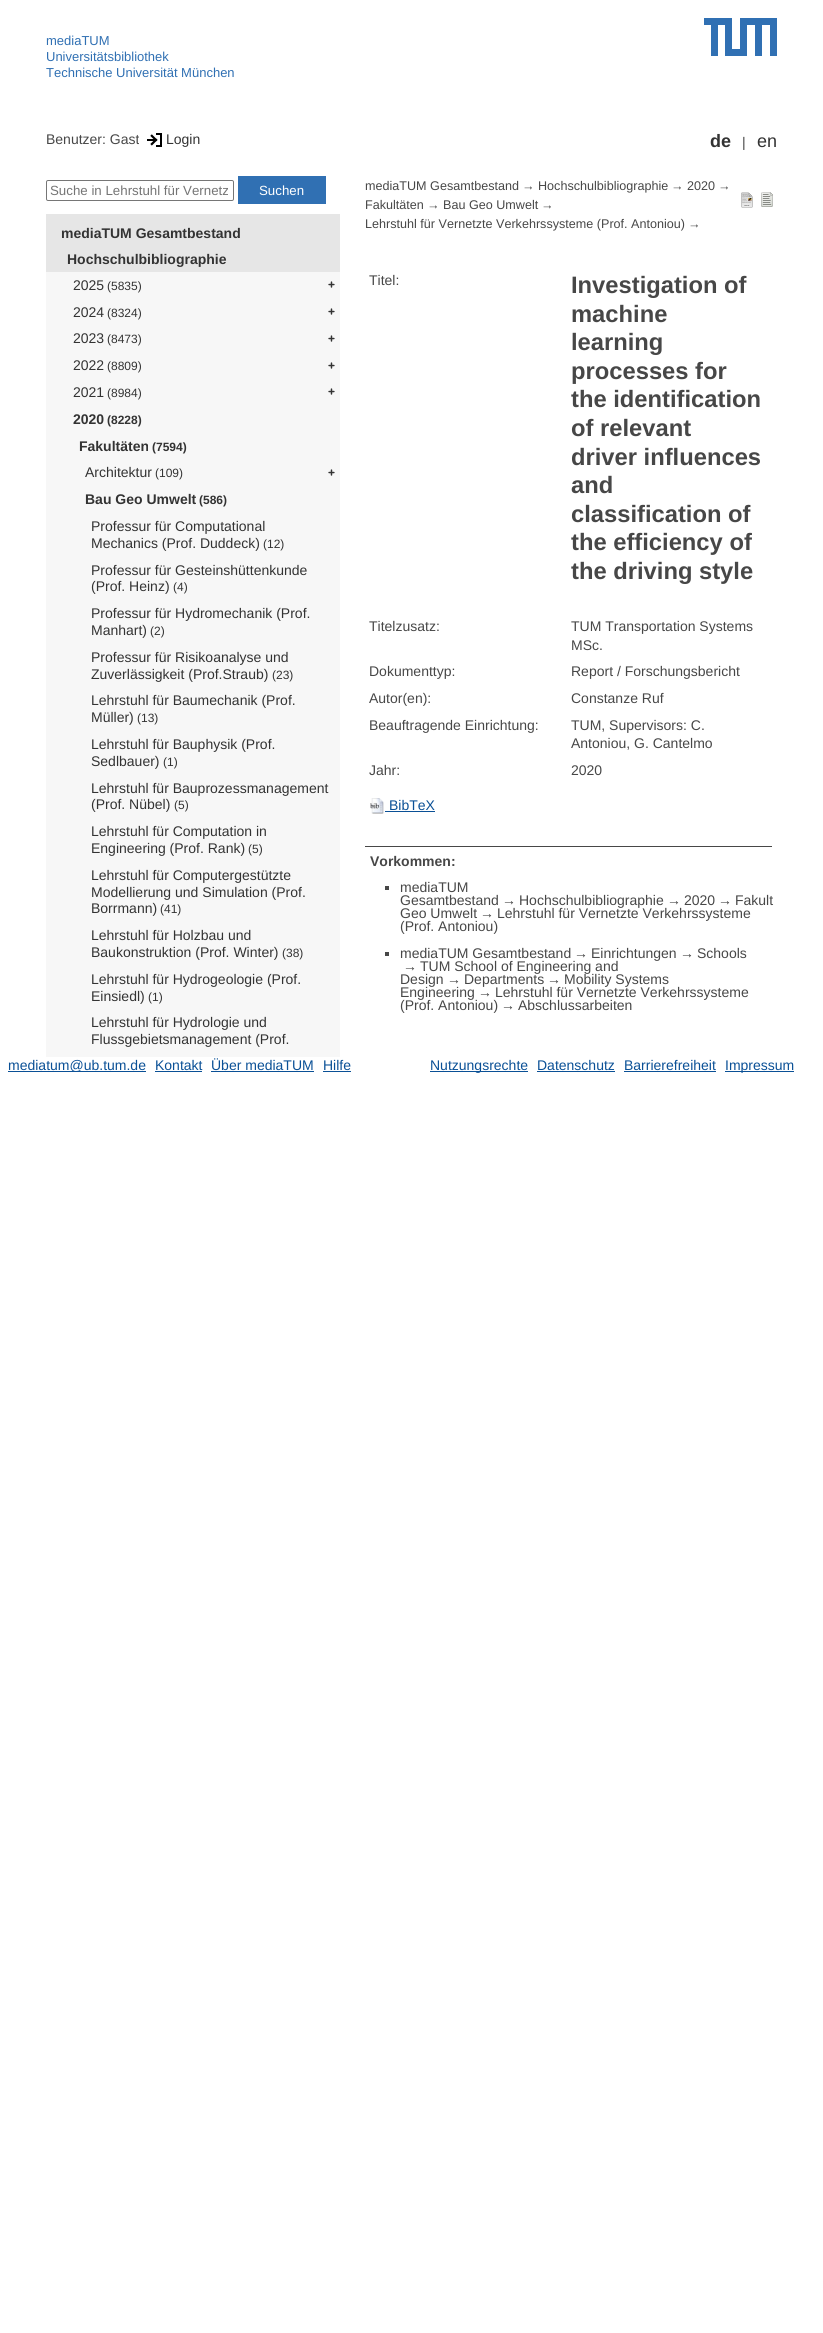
#include <cairo.h>
#include <math.h>
#include <stddef.h>


static void set_color(cairo_t *cr, unsigned color) {
    cairo_set_source_rgb(cr, (color >> 16) / 255.0, (color >> 8 & 255) / 255.0, (color & 255) / 255.0);
}

static void draw_text(cairo_t *cr, double x, double y, const char *s, const char *family, double size, int italic, int bold, unsigned color) {
    cairo_select_font_face(cr, family, italic ? CAIRO_FONT_SLANT_ITALIC : CAIRO_FONT_SLANT_NORMAL,
        bold ? CAIRO_FONT_WEIGHT_BOLD : CAIRO_FONT_WEIGHT_NORMAL);
    cairo_set_font_size(cr, size);
    set_color(cr, color);
    cairo_move_to(cr, x, y);
    cairo_show_text(cr, s);
}

static void fill_rect(cairo_t *cr, double x, double y, double w, double h, unsigned color) {
    set_color(cr, color);
    cairo_rectangle(cr, x, y, w, h);
    cairo_fill(cr);
}

static void rounded_rect(cairo_t *cr, double x, double y, double w, double h, double r) {
    cairo_new_sub_path(cr);
    cairo_arc(cr, x + w - r, y + h - r, r, 0, M_PI / 2);
    cairo_arc(cr, x + r, y + h - r, r, M_PI / 2, M_PI);
    cairo_arc(cr, x + r, y + r, r, M_PI, 1.5 * M_PI);
    cairo_arc(cr, x + w - r, y + r, r, 1.5 * M_PI, 2 * M_PI);
    cairo_close_path(cr);
}

static void draw_image(cairo_t *cr, const char *path, double x, double y, double w, double h) {
    cairo_surface_t *image = cairo_image_surface_create_from_png(path);
    cairo_save(cr);
    cairo_set_source_surface(cr, image, x, y);
    cairo_rectangle(cr, x, y, w, h);
    cairo_fill(cr);
    cairo_restore(cr);
    cairo_surface_destroy(image);
}

int main(void) {
    cairo_surface_t *surface = cairo_image_surface_create(CAIRO_FORMAT_RGB24, 823, 2333);
    cairo_t *cr = cairo_create(surface);
    cairo_font_options_t *options = cairo_font_options_create();
    cairo_font_options_set_hint_metrics(options, CAIRO_HINT_METRICS_OFF);
    cairo_font_options_set_hint_style(options, CAIRO_HINT_STYLE_NONE);
    cairo_set_font_options(cr, options);
    cairo_set_miter_limit(cr, 4);
    set_color(cr, 0xFFFFFF);
    cairo_paint(cr);
    draw_text(cr, 46, 45, "mediaTUM", "Liberation Sans", 13, 0, 0, 0x3070B3);
    draw_text(cr, 46, 61, "Universitätsbibliothek", "Liberation Sans", 13, 0, 0, 0x3070B3);
    draw_text(cr, 46, 77, "Technische Universität München", "Liberation Sans", 13, 0, 0, 0x3070B3);
    draw_image(cr, "assets/img1.png", 704, 18, 73, 38);
    draw_text(cr, 46, 144, "Benutzer: Gast", "Liberation Sans", 14, 0, 0, 0x474747);
    draw_image(cr, "assets/img2.png", 147, 133, 15, 14);
    draw_text(cr, 166, 144, "Login", "Liberation Sans", 14, 0, 0, 0x333333);
    draw_text(cr, 710, 147, "de", "Liberation Sans", 18, 0, 1, 0x333333);
    draw_text(cr, 742, 147, "|", "Liberation Sans", 14, 0, 0, 0x474747);
    draw_text(cr, 757, 147, "en", "Liberation Sans", 18, 0, 0, 0x333333);
    rounded_rect(cr, 46.5, 180.5, 187, 20, 1.5);
    set_color(cr, 0x767676);
    cairo_set_line_width(cr, 1);
    cairo_stroke(cr);
    draw_text(cr, 50, 195, "Suche in Lehrstuhl für Vernetz", "Liberation Sans", 13.3, 0, 0, 0x757575);
    fill_rect(cr, 238, 176, 88, 28, 0x3070B3);
    draw_text(cr, 259, 195, "Suchen", "Liberation Sans", 13.3, 0, 0, 0xFFFFFF);
    fill_rect(cr, 46, 214, 294, 58, 0xE6E6E6);
    draw_text(cr, 61, 238, "mediaTUM Gesamtbestand", "Liberation Sans", 14, 0, 1, 0x333333);
    draw_text(cr, 67, 264, "Hochschulbibliographie", "Liberation Sans", 14, 0, 1, 0x333333);
    fill_rect(cr, 46, 272, 294, 785, 0xF7F7F7);
    draw_text(cr, 73, 290, "2025", "Liberation Sans", 14, 0, 0, 0x333333);
    draw_text(cr, 107, 290, "(5835)", "Liberation Sans", 12, 0, 0, 0x333333);
    draw_image(cr, "assets/img3.png", 328, 281, 7, 7);
    draw_text(cr, 73, 317, "2024", "Liberation Sans", 14, 0, 0, 0x333333);
    draw_text(cr, 107, 317, "(8324)", "Liberation Sans", 12, 0, 0, 0x333333);
    draw_image(cr, "assets/img3.png", 328, 308, 7, 7);
    draw_text(cr, 73, 343, "2023", "Liberation Sans", 14, 0, 0, 0x333333);
    draw_text(cr, 107, 343, "(8473)", "Liberation Sans", 12, 0, 0, 0x333333);
    draw_image(cr, "assets/img3.png", 328, 335, 7, 7);
    draw_text(cr, 73, 370, "2022", "Liberation Sans", 14, 0, 0, 0x333333);
    draw_text(cr, 107, 370, "(8809)", "Liberation Sans", 12, 0, 0, 0x333333);
    draw_image(cr, "assets/img3.png", 328, 362, 7, 7);
    draw_text(cr, 73, 397, "2021", "Liberation Sans", 14, 0, 0, 0x333333);
    draw_text(cr, 107, 397, "(8984)", "Liberation Sans", 12, 0, 0, 0x333333);
    draw_image(cr, "assets/img3.png", 328, 388, 7, 7);
    draw_text(cr, 73, 424, "2020", "Liberation Sans", 14, 0, 1, 0x333333);
    draw_text(cr, 107, 424, "(8228)", "Liberation Sans", 12, 0, 1, 0x333333);
    draw_text(cr, 79, 451, "Fakultäten", "Liberation Sans", 14, 0, 1, 0x333333);
    draw_text(cr, 152, 451, "(7594)", "Liberation Sans", 12, 0, 1, 0x333333);
    draw_text(cr, 85, 477, "Architektur", "Liberation Sans", 14, 0, 0, 0x333333);
    draw_text(cr, 155, 477, "(109)", "Liberation Sans", 12, 0, 0, 0x333333);
    draw_image(cr, "assets/img3.png", 328, 469, 7, 7);
    draw_text(cr, 85, 504, "Bau Geo Umwelt", "Liberation Sans", 14, 0, 1, 0x333333);
    draw_text(cr, 199, 504, "(586)", "Liberation Sans", 12, 0, 1, 0x333333);
    draw_text(cr, 91, 531, "Professur für Computational", "Liberation Sans", 14, 0, 0, 0x333333);
    draw_text(cr, 91, 548, "Mechanics (Prof. Duddeck)", "Liberation Sans", 14, 0, 0, 0x333333);
    draw_text(cr, 263, 548, "(12)", "Liberation Sans", 12, 0, 0, 0x333333);
    draw_text(cr, 91, 575, "Professur für Gesteinshüttenkunde", "Liberation Sans", 14, 0, 0, 0x333333);
    draw_text(cr, 91, 591, "(Prof. Heinz)", "Liberation Sans", 14, 0, 0, 0x333333);
    draw_text(cr, 173, 591, "(4)", "Liberation Sans", 12, 0, 0, 0x333333);
    draw_text(cr, 91, 618, "Professur für Hydromechanik (Prof.", "Liberation Sans", 14, 0, 0, 0x333333);
    draw_text(cr, 91, 635, "Manhart)", "Liberation Sans", 14, 0, 0, 0x333333);
    draw_text(cr, 150, 635, "(2)", "Liberation Sans", 12, 0, 0, 0x333333);
    draw_text(cr, 91, 662, "Professur für Risikoanalyse und", "Liberation Sans", 14, 0, 0, 0x333333);
    draw_text(cr, 91, 679, "Zuverlässigkeit (Prof.Straub)", "Liberation Sans", 14, 0, 0, 0x333333);
    draw_text(cr, 272, 679, "(23)", "Liberation Sans", 12, 0, 0, 0x333333);
    draw_text(cr, 91, 705, "Lehrstuhl für Baumechanik (Prof.", "Liberation Sans", 14, 0, 0, 0x333333);
    draw_text(cr, 91, 722, "Müller)", "Liberation Sans", 14, 0, 0, 0x333333);
    draw_text(cr, 137, 722, "(13)", "Liberation Sans", 12, 0, 0, 0x333333);
    draw_text(cr, 91, 749, "Lehrstuhl für Bauphysik (Prof.", "Liberation Sans", 14, 0, 0, 0x333333);
    draw_text(cr, 91, 766, "Sedlbauer)", "Liberation Sans", 14, 0, 0, 0x333333);
    draw_text(cr, 163, 766, "(1)", "Liberation Sans", 12, 0, 0, 0x333333);
    draw_text(cr, 91, 793, "Lehrstuhl für Bauprozessmanagement", "Liberation Sans", 14, 0, 0, 0x333333);
    draw_text(cr, 91, 809, "(Prof. Nübel)", "Liberation Sans", 14, 0, 0, 0x333333);
    draw_text(cr, 174, 809, "(5)", "Liberation Sans", 12, 0, 0, 0x333333);
    draw_text(cr, 91, 836, "Lehrstuhl für Computation in", "Liberation Sans", 14, 0, 0, 0x333333);
    draw_text(cr, 91, 853, "Engineering (Prof. Rank)", "Liberation Sans", 14, 0, 0, 0x333333);
    draw_text(cr, 248, 853, "(5)", "Liberation Sans", 12, 0, 0, 0x333333);
    draw_text(cr, 91, 880, "Lehrstuhl für Computergestützte", "Liberation Sans", 14, 0, 0, 0x333333);
    draw_text(cr, 91, 897, "Modellierung und Simulation (Prof.", "Liberation Sans", 14, 0, 0, 0x333333);
    draw_text(cr, 91, 913, "Borrmann)", "Liberation Sans", 14, 0, 0, 0x333333);
    draw_text(cr, 160, 913, "(41)", "Liberation Sans", 12, 0, 0, 0x333333);
    draw_text(cr, 91, 940, "Lehrstuhl für Holzbau und", "Liberation Sans", 14, 0, 0, 0x333333);
    draw_text(cr, 91, 957, "Baukonstruktion (Prof. Winter)", "Liberation Sans", 14, 0, 0, 0x333333);
    draw_text(cr, 282, 957, "(38)", "Liberation Sans", 12, 0, 0, 0x333333);
    draw_text(cr, 91, 984, "Lehrstuhl für Hydrogeologie (Prof.", "Liberation Sans", 14, 0, 0, 0x333333);
    draw_text(cr, 91, 1001, "Einsiedl)", "Liberation Sans", 14, 0, 0, 0x333333);
    draw_text(cr, 148, 1001, "(1)", "Liberation Sans", 12, 0, 0, 0x333333);
    draw_text(cr, 91, 1027, "Lehrstuhl für Hydrologie und", "Liberation Sans", 14, 0, 0, 0x333333);
    draw_text(cr, 91, 1044, "Flussgebietsmanagement (Prof.", "Liberation Sans", 14, 0, 0, 0x333333);
    draw_text(cr, 365, 190, "mediaTUM Gesamtbestand", "Liberation Sans", 12.6, 0, 0, 0x474747);
    draw_text(cr, 522, 190, "→", "Liberation Sans", 12.6, 0, 0, 0x474747);
    draw_text(cr, 538, 190, "Hochschulbibliographie", "Liberation Sans", 12.6, 0, 0, 0x474747);
    draw_text(cr, 671, 190, "→", "Liberation Sans", 12.6, 0, 0, 0x474747);
    draw_text(cr, 687, 190, "2020", "Liberation Sans", 12.6, 0, 0, 0x474747);
    draw_text(cr, 718, 190, "→", "Liberation Sans", 12.6, 0, 0, 0x474747);
    draw_text(cr, 365, 209, "Fakultäten", "Liberation Sans", 12.6, 0, 0, 0x474747);
    draw_text(cr, 427, 209, "→", "Liberation Sans", 12.6, 0, 0, 0x474747);
    draw_text(cr, 443, 209, "Bau Geo Umwelt", "Liberation Sans", 12.6, 0, 0, 0x474747);
    draw_text(cr, 541, 209, "→", "Liberation Sans", 12.6, 0, 0, 0x474747);
    draw_text(cr, 365, 228, "Lehrstuhl für Vernetzte Verkehrssysteme (Prof. Antoniou)", "Liberation Sans", 12.6, 0, 0, 0x474747);
    draw_text(cr, 688, 228, "→", "Liberation Sans", 12.6, 0, 0, 0x474747);
    draw_image(cr, "assets/img4.png", 741, 192, 12, 16);
    draw_image(cr, "assets/img5.png", 761, 192, 12, 15);
    draw_text(cr, 369, 285, "Titel:", "Liberation Sans", 14, 0, 0, 0x474747);
    draw_text(cr, 571, 293, "Investigation of", "Liberation Sans", 23.75, 0, 1, 0x474747);
    draw_text(cr, 571, 322, "machine", "Liberation Sans", 23.75, 0, 1, 0x474747);
    draw_text(cr, 571, 350, "learning", "Liberation Sans", 23.75, 0, 1, 0x474747);
    draw_text(cr, 571, 379, "processes for", "Liberation Sans", 23.75, 0, 1, 0x474747);
    draw_text(cr, 571, 407, "the identification", "Liberation Sans", 23.75, 0, 1, 0x474747);
    draw_text(cr, 571, 436, "of relevant", "Liberation Sans", 23.75, 0, 1, 0x474747);
    draw_text(cr, 571, 465, "driver influences", "Liberation Sans", 23.75, 0, 1, 0x474747);
    draw_text(cr, 571, 493, "and", "Liberation Sans", 23.75, 0, 1, 0x474747);
    draw_text(cr, 571, 522, "classification of", "Liberation Sans", 23.75, 0, 1, 0x474747);
    draw_text(cr, 571, 550, "the efficiency of", "Liberation Sans", 23.75, 0, 1, 0x474747);
    draw_text(cr, 571, 579, "the driving style", "Liberation Sans", 23.75, 0, 1, 0x474747);
    draw_text(cr, 369, 631, "Titelzusatz:", "Liberation Sans", 14, 0, 0, 0x474747);
    draw_text(cr, 571, 631, "TUM Transportation Systems", "Liberation Sans", 14, 0, 0, 0x474747);
    draw_text(cr, 571, 650, "MSc.", "Liberation Sans", 14, 0, 0, 0x474747);
    draw_text(cr, 369, 676, "Dokumenttyp:", "Liberation Sans", 14, 0, 0, 0x474747);
    draw_text(cr, 571, 676, "Report / Forschungsbericht", "Liberation Sans", 14, 0, 0, 0x474747);
    draw_text(cr, 369, 703, "Autor(en):", "Liberation Sans", 14, 0, 0, 0x474747);
    draw_text(cr, 571, 703, "Constanze Ruf", "Liberation Sans", 14, 0, 0, 0x474747);
    draw_text(cr, 369, 730, "Beauftragende Einrichtung:", "Liberation Sans", 14, 0, 0, 0x474747);
    draw_text(cr, 571, 730, "TUM, Supervisors: C.", "Liberation Sans", 14, 0, 0, 0x474747);
    draw_text(cr, 571, 748, "Antoniou, G. Cantelmo", "Liberation Sans", 14, 0, 0, 0x474747);
    draw_text(cr, 369, 775, "Jahr:", "Liberation Sans", 14, 0, 0, 0x474747);
    draw_text(cr, 571, 775, "2020", "Liberation Sans", 14, 0, 0, 0x474747);
    draw_image(cr, "assets/img6.png", 370, 798, 14, 16);
    draw_text(cr, 389, 810, "BibTeX", "Liberation Sans", 14, 0, 0, 0x0A5096);
    fill_rect(cr, 385, 811, 50, 1, 0x0A5096);
    fill_rect(cr, 365, 846, 407, 1, 0x474747);
    draw_text(cr, 370, 866, "Vorkommen:", "Liberation Sans", 14, 0, 1, 0x474747);
    fill_rect(cr, 385, 886, 4, 4, 0x474747);
    draw_text(cr, 400, 892, "mediaTUM", "Liberation Sans", 14, 0, 0, 0x474747);
    draw_text(cr, 400, 905, "Gesamtbestand", "Liberation Sans", 14, 0, 0, 0x474747);
    draw_text(cr, 502, 905, "→", "Liberation Sans", 14, 0, 0, 0x474747);
    draw_text(cr, 519, 905, "Hochschulbibliographie", "Liberation Sans", 14, 0, 0, 0x474747);
    draw_text(cr, 667, 905, "→", "Liberation Sans", 14, 0, 0, 0x474747);
    draw_text(cr, 684, 905, "2020", "Liberation Sans", 14, 0, 0, 0x474747);
    draw_text(cr, 718, 905, "→", "Liberation Sans", 14, 0, 0, 0x474747);
    draw_text(cr, 735, 905, "Fakult", "Liberation Sans", 14, 0, 0, 0x474747);
    draw_text(cr, 400, 918, "Geo Umwelt", "Liberation Sans", 14, 0, 0, 0x474747);
    draw_text(cr, 480, 918, "→", "Liberation Sans", 14, 0, 0, 0x474747);
    draw_text(cr, 497, 918, "Lehrstuhl für Vernetzte Verkehrssysteme", "Liberation Sans", 14, 0, 0, 0x474747);
    draw_text(cr, 400, 931, "(Prof. Antoniou)", "Liberation Sans", 14, 0, 0, 0x474747);
    fill_rect(cr, 385, 952, 4, 4, 0x474747);
    draw_text(cr, 400, 958, "mediaTUM Gesamtbestand", "Liberation Sans", 14, 0, 0, 0x474747);
    draw_text(cr, 574, 958, "→", "Liberation Sans", 14, 0, 0, 0x474747);
    draw_text(cr, 591, 958, "Einrichtungen", "Liberation Sans", 14, 0, 0, 0x474747);
    draw_text(cr, 680, 958, "→", "Liberation Sans", 14, 0, 0, 0x474747);
    draw_text(cr, 697, 958, "Schools", "Liberation Sans", 14, 0, 0, 0x474747);
    draw_text(cr, 403, 971, "→", "Liberation Sans", 14, 0, 0, 0x474747);
    draw_text(cr, 420, 971, "TUM School of Engineering and", "Liberation Sans", 14, 0, 0, 0x474747);
    draw_text(cr, 400, 984, "Design", "Liberation Sans", 14, 0, 0, 0x474747);
    draw_text(cr, 447, 984, "→", "Liberation Sans", 14, 0, 0, 0x474747);
    draw_text(cr, 464, 984, "Departments", "Liberation Sans", 14, 0, 0, 0x474747);
    draw_text(cr, 547, 984, "→", "Liberation Sans", 14, 0, 0, 0x474747);
    draw_text(cr, 564, 984, "Mobility Systems", "Liberation Sans", 14, 0, 0, 0x474747);
    draw_text(cr, 400, 997, "Engineering", "Liberation Sans", 14, 0, 0, 0x474747);
    draw_text(cr, 478, 997, "→", "Liberation Sans", 14, 0, 0, 0x474747);
    draw_text(cr, 495, 997, "Lehrstuhl für Vernetzte Verkehrssysteme", "Liberation Sans", 14, 0, 0, 0x474747);
    draw_text(cr, 400, 1010, "(Prof. Antoniou)", "Liberation Sans", 14, 0, 0, 0x474747);
    draw_text(cr, 501, 1010, "→", "Liberation Sans", 14, 0, 0, 0x474747);
    draw_text(cr, 518, 1010, "Abschlussarbeiten", "Liberation Sans", 14, 0, 0, 0x474747);
    fill_rect(cr, 8, 1071, 138, 1, 0x0A5096);
    draw_text(cr, 8, 1070, "mediatum@ub.tum.de", "Liberation Sans", 14, 0, 0, 0x0A5096);
    draw_text(cr, 155, 1070, "Kontakt", "Liberation Sans", 14, 0, 0, 0x0A5096);
    fill_rect(cr, 155, 1071, 47, 1, 0x0A5096);
    draw_text(cr, 211, 1070, "Über mediaTUM", "Liberation Sans", 14, 0, 0, 0x0A5096);
    fill_rect(cr, 211, 1071, 103, 1, 0x0A5096);
    draw_text(cr, 323, 1070, "Hilfe", "Liberation Sans", 14, 0, 0, 0x0A5096);
    fill_rect(cr, 323, 1071, 28, 1, 0x0A5096);
    fill_rect(cr, 430, 1071, 98, 1, 0x0A5096);
    draw_text(cr, 430, 1070, "Nutzungsrechte", "Liberation Sans", 14, 0, 0, 0x0A5096);
    draw_text(cr, 537, 1070, "Datenschutz", "Liberation Sans", 14, 0, 0, 0x0A5096);
    fill_rect(cr, 537, 1071, 78, 1, 0x0A5096);
    draw_text(cr, 624, 1070, "Barrierefreiheit", "Liberation Sans", 14, 0, 0, 0x0A5096);
    fill_rect(cr, 624, 1071, 92, 1, 0x0A5096);
    fill_rect(cr, 725, 1071, 69, 1, 0x0A5096);
    draw_text(cr, 725, 1070, "Impressum", "Liberation Sans", 14, 0, 0, 0x0A5096);
    cairo_surface_write_to_png(surface, "output.png");
    cairo_font_options_destroy(options);
    cairo_destroy(cr);
    cairo_surface_destroy(surface);
    return 0;
}
